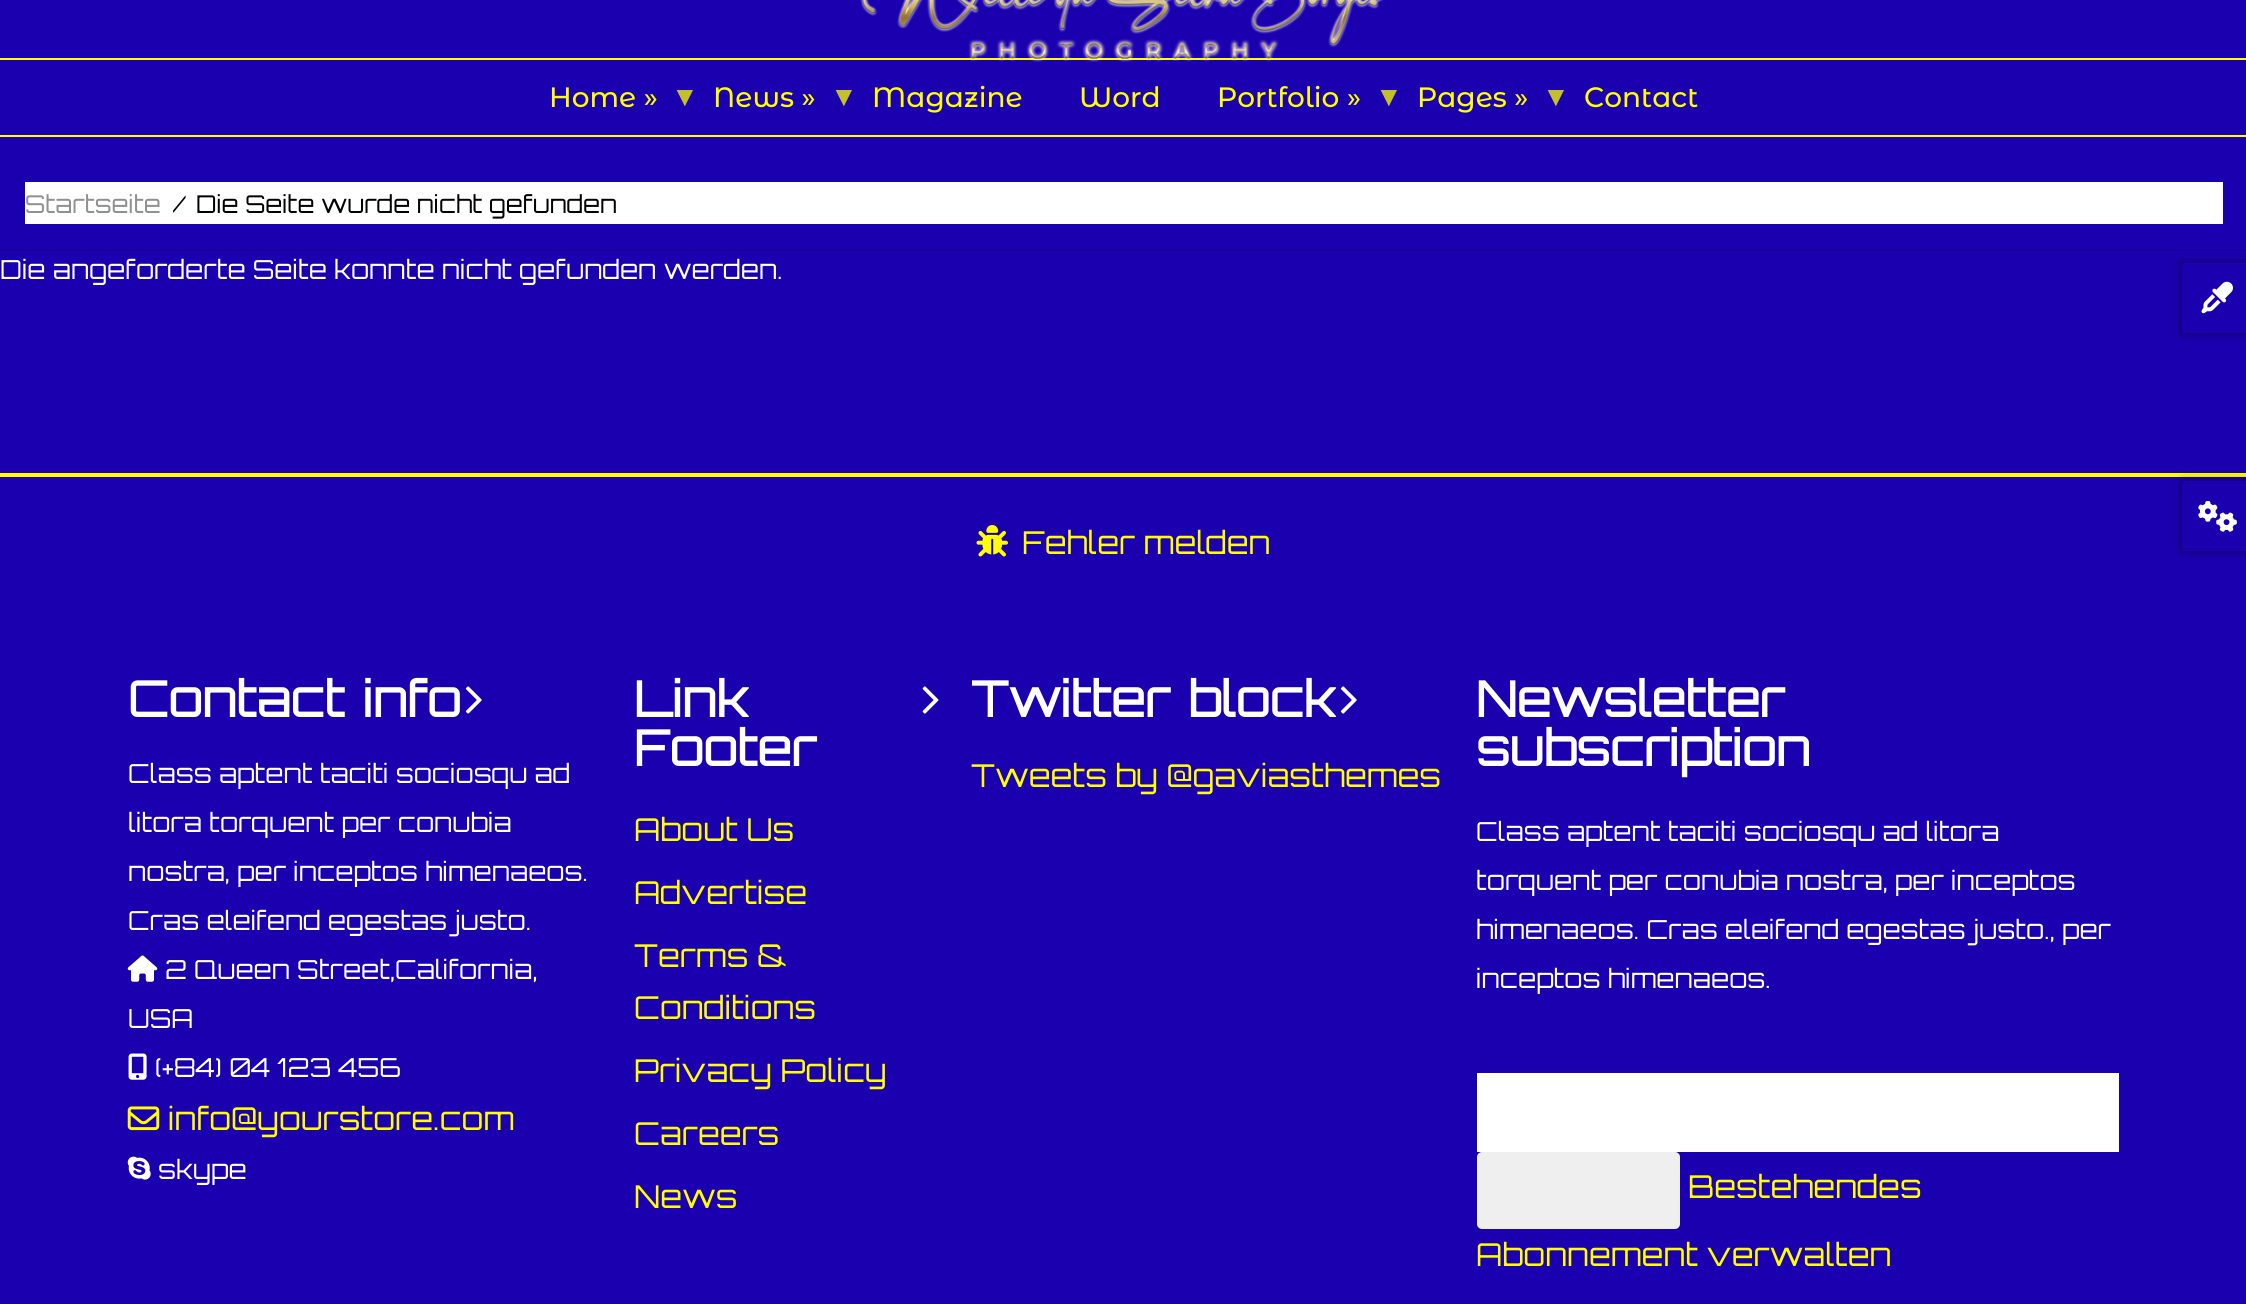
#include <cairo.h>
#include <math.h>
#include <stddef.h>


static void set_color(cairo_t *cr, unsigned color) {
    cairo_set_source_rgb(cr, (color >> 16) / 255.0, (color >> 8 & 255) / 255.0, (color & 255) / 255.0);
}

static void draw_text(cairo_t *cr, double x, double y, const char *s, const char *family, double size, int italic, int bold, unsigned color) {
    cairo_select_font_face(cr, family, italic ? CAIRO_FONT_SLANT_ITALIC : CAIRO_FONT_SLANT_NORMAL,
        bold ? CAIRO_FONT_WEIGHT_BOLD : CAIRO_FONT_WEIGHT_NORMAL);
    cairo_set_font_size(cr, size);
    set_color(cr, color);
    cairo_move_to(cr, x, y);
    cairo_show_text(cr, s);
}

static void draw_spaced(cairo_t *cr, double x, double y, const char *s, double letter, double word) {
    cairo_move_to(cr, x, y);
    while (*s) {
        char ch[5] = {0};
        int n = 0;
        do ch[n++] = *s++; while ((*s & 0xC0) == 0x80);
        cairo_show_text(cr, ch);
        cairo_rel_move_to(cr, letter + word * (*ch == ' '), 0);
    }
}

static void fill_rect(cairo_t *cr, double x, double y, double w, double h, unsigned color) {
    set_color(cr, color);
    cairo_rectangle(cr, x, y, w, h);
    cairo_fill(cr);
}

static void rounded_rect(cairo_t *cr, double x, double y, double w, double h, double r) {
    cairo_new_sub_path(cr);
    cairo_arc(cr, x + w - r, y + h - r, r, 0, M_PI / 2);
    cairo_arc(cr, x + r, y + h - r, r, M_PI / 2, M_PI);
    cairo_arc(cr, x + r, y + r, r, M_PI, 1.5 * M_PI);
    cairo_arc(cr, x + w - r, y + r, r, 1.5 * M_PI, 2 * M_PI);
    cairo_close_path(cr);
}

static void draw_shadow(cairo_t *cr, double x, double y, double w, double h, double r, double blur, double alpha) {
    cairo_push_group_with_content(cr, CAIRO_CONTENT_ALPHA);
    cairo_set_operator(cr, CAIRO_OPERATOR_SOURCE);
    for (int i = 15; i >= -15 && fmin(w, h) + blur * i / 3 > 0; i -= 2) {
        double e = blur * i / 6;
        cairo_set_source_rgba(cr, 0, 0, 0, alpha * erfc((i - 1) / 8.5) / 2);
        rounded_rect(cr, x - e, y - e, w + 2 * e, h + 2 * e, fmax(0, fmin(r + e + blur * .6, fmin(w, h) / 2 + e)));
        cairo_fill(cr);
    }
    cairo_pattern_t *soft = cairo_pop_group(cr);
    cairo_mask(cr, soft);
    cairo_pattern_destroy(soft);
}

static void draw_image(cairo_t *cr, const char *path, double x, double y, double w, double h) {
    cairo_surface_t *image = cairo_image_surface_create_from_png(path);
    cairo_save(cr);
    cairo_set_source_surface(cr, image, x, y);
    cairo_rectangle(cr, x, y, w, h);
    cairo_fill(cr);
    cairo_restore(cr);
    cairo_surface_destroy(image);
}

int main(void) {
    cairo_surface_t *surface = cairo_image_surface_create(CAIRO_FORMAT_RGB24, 2246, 1304);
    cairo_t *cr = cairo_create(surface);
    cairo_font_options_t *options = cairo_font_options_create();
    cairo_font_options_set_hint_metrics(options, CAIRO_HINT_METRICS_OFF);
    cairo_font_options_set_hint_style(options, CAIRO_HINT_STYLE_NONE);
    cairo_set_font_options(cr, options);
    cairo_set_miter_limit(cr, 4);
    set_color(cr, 0x1B00AF);
    cairo_paint(cr);
    fill_rect(cr, 0, 58, 2246, 2, 0xFFFF00);
    draw_image(cr, "assets/img1.png", 860, 0, 524, 62);
    fill_rect(cr, 0, 135, 2246, 2, 0xFFFF00);
    draw_text(cr, 549, 107, "Home »", "Montserrat Alternates Medium", 28, 0, 0, 0xFFFF00);
    draw_text(cr, 671, 106, "▼", "Liberation Serif", 28, 0, 0, 0xC6BF2C);
    draw_text(cr, 713, 107, "News »", "Montserrat Alternates Medium", 28, 0, 0, 0xFFFF00);
    draw_text(cr, 830, 106, "▼", "Liberation Serif", 28, 0, 0, 0xC6BF2C);
    draw_text(cr, 872, 107, "Magazine", "Montserrat Alternates Medium", 28, 0, 0, 0xFFFF00);
    draw_text(cr, 1079, 107, "Word", "Montserrat Alternates Medium", 28, 0, 0, 0xFFFF00);
    draw_text(cr, 1217, 107, "Portfolio »", "Montserrat Alternates Medium", 28, 0, 0, 0xFFFF00);
    draw_text(cr, 1375, 106, "▼", "Liberation Serif", 28, 0, 0, 0xC6BF2C);
    draw_text(cr, 1417, 107, "Pages »", "Montserrat Alternates Medium", 28, 0, 0, 0xFFFF00);
    draw_text(cr, 1542, 106, "▼", "Liberation Serif", 28, 0, 0, 0xC6BF2C);
    draw_text(cr, 1584, 107, "Contact", "Montserrat Alternates Medium", 28, 0, 0, 0xFFFF00);
    fill_rect(cr, 0, 249, 2246, 2, 0x18009E);
    fill_rect(cr, 25, 182, 2198, 42, 0xFFFFFF);
    draw_text(cr, 25, 213, "Startseite", "Orbitron", 24.5, 0, 0, 0x909090);
    draw_text(cr, 173, 213, "/", "Orbitron", 24.5, 0, 0, 0x000000);
    draw_text(cr, 196, 213, "Die Seite wurde nicht gefunden", "Orbitron", 24.5, 0, 0, 0x000000);
    draw_text(cr, 0, 279, "Die angeforderte Seite konnte nicht gefunden werden.", "Orbitron", 26.25, 0, 0, 0xFFFFFF);
    fill_rect(cr, 0, 473, 2246, 4, 0xFFFF00);
    draw_image(cr, "assets/img2.png", 976, 525, 32, 32);
    draw_text(cr, 1022, 554, "Fehler melden", "Orbitron", 31.5, 0, 0, 0xFFFF00);
    cairo_select_font_face(cr, "Orbitron", CAIRO_FONT_SLANT_NORMAL, CAIRO_FONT_WEIGHT_BOLD);
    cairo_set_font_size(cr, 49);
    set_color(cr, 0xFFFFFF);
    draw_spaced(cr, 128, 717, "Contact info", 0, 5);
    draw_image(cr, "assets/img3.png", 465, 686, 17, 28);
    draw_text(cr, 128, 783, "Class aptent taciti sociosqu ad", "Orbitron", 26.25, 0, 0, 0xFFFFFF);
    draw_text(cr, 128, 832, "litora torquent per conubia", "Orbitron", 26.25, 0, 0, 0xFFFFFF);
    draw_text(cr, 128, 881, "nostra, per inceptos himenaeos.", "Orbitron", 26.25, 0, 0, 0xFFFFFF);
    draw_text(cr, 128, 930, "Cras eleifend egestas justo.", "Orbitron", 26.25, 0, 0, 0xFFFFFF);
    draw_image(cr, "assets/img4.png", 127, 955, 31, 27);
    draw_text(cr, 165, 979, "2 Queen Street,California,", "Orbitron", 26.25, 0, 0, 0xFFFFFF);
    draw_text(cr, 128, 1028, "USA", "Orbitron", 26.25, 0, 0, 0xFFFFFF);
    draw_image(cr, "assets/img5.png", 128, 1053, 19, 27);
    draw_text(cr, 155, 1077, "(+84) 04 123 456", "Orbitron", 26.25, 0, 0, 0xFFFFFF);
    draw_image(cr, "assets/img6.png", 127, 1106, 33, 25);
    draw_text(cr, 168, 1130, "info@yourstore.com", "Orbitron", 31.5, 0, 0, 0xFFFF00);
    draw_image(cr, "assets/img7.png", 127, 1156, 24, 24);
    draw_text(cr, 158, 1179, "skype", "Orbitron", 26.25, 0, 0, 0xFFFFFF);
    draw_text(cr, 634, 717, "Link", "Orbitron", 49, 0, 1, 0xFFFFFF);
    draw_image(cr, "assets/img8.png", 922, 686, 17, 28);
    draw_text(cr, 634, 766, "Footer", "Orbitron", 49, 0, 1, 0xFFFFFF);
    draw_text(cr, 634, 841, "About Us", "Orbitron", 31.5, 0, 0, 0xFFFF00);
    draw_text(cr, 634, 904, "Advertise", "Orbitron", 31.5, 0, 0, 0xFFFF00);
    draw_text(cr, 634, 967, "Terms &", "Orbitron", 31.5, 0, 0, 0xFFFF00);
    draw_text(cr, 634, 1019, "Conditions", "Orbitron", 31.5, 0, 0, 0xFFFF00);
    draw_text(cr, 634, 1082, "Privacy Policy", "Orbitron", 31.5, 0, 0, 0xFFFF00);
    draw_text(cr, 634, 1145, "Careers", "Orbitron", 31.5, 0, 0, 0xFFFF00);
    draw_text(cr, 634, 1208, "News", "Orbitron", 31.5, 0, 0, 0xFFFF00);
    cairo_select_font_face(cr, "Orbitron", CAIRO_FONT_SLANT_NORMAL, CAIRO_FONT_WEIGHT_BOLD);
    cairo_set_font_size(cr, 49);
    set_color(cr, 0xFFFFFF);
    draw_spaced(cr, 971, 717, "Twitter block", 0, 5);
    draw_image(cr, "assets/img3.png", 1340, 686, 17, 28);
    draw_text(cr, 971, 787, "Tweets by @gaviasthemes", "Orbitron", 31.5, 0, 0, 0xFFFF00);
    draw_text(cr, 1476, 717, "Newsletter", "Orbitron", 49, 0, 1, 0xFFFFFF);
    draw_text(cr, 1476, 766, "subscription", "Orbitron", 49, 0, 1, 0xFFFFFF);
    draw_text(cr, 1476, 841, "Class aptent taciti sociosqu ad litora", "Orbitron", 26.25, 0, 0, 0xFFFFFF);
    draw_text(cr, 1476, 890, "torquent per conubia nostra, per inceptos", "Orbitron", 26.25, 0, 0, 0xFFFFFF);
    draw_text(cr, 1476, 939, "himenaeos. Cras eleifend egestas justo., per", "Orbitron", 26.25, 0, 0, 0xFFFFFF);
    draw_text(cr, 1476, 988, "inceptos himenaeos.", "Orbitron", 26.25, 0, 0, 0xFFFFFF);
    fill_rect(cr, 1477, 1073, 642, 79, 0xFFFFFF);
    set_color(cr, 0xEFEFEF);
    rounded_rect(cr, 1477, 1152, 203, 77, 5);
    cairo_fill(cr);
    draw_text(cr, 1688, 1198, "Bestehendes", "Orbitron", 31.5, 0, 0, 0xFFFF00);
    draw_text(cr, 1476, 1266, "Abonnement verwalten", "Orbitron", 31.5, 0, 0, 0xFFFF00);
    cairo_save(cr);
    cairo_set_fill_rule(cr, CAIRO_FILL_RULE_EVEN_ODD);
    cairo_new_path(cr);
    cairo_move_to(cr, 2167, 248);
    cairo_line_to(cr, 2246, 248);
    cairo_line_to(cr, 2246, 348);
    cairo_line_to(cr, 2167, 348);
    cairo_close_path(cr);
    cairo_move_to(cr, 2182, 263);
    cairo_line_to(cr, 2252, 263);
    cairo_line_to(cr, 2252, 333);
    cairo_line_to(cr, 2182, 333);
    cairo_close_path(cr);
    cairo_clip(cr);
    set_color(cr, 0x000000);
    draw_shadow(cr, 2182, 263, 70, 70, 0, 4.5, 0.5);
    cairo_restore(cr);
    draw_image(cr, "assets/img9.png", 2201, 281, 32, 33);
    cairo_save(cr);
    cairo_set_fill_rule(cr, CAIRO_FILL_RULE_EVEN_ODD);
    cairo_new_path(cr);
    cairo_move_to(cr, 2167, 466);
    cairo_line_to(cr, 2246, 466);
    cairo_line_to(cr, 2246, 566);
    cairo_line_to(cr, 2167, 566);
    cairo_close_path(cr);
    cairo_move_to(cr, 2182, 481);
    cairo_line_to(cr, 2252, 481);
    cairo_line_to(cr, 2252, 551);
    cairo_line_to(cr, 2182, 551);
    cairo_close_path(cr);
    cairo_clip(cr);
    set_color(cr, 0x000000);
    draw_shadow(cr, 2182, 481, 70, 70, 0, 4.5, 0.5);
    cairo_restore(cr);
    draw_image(cr, "assets/img10.png", 2198, 501, 39, 31);
    cairo_surface_write_to_png(surface, "output.png");
    cairo_font_options_destroy(options);
    cairo_destroy(cr);
    cairo_surface_destroy(surface);
    return 0;
}
